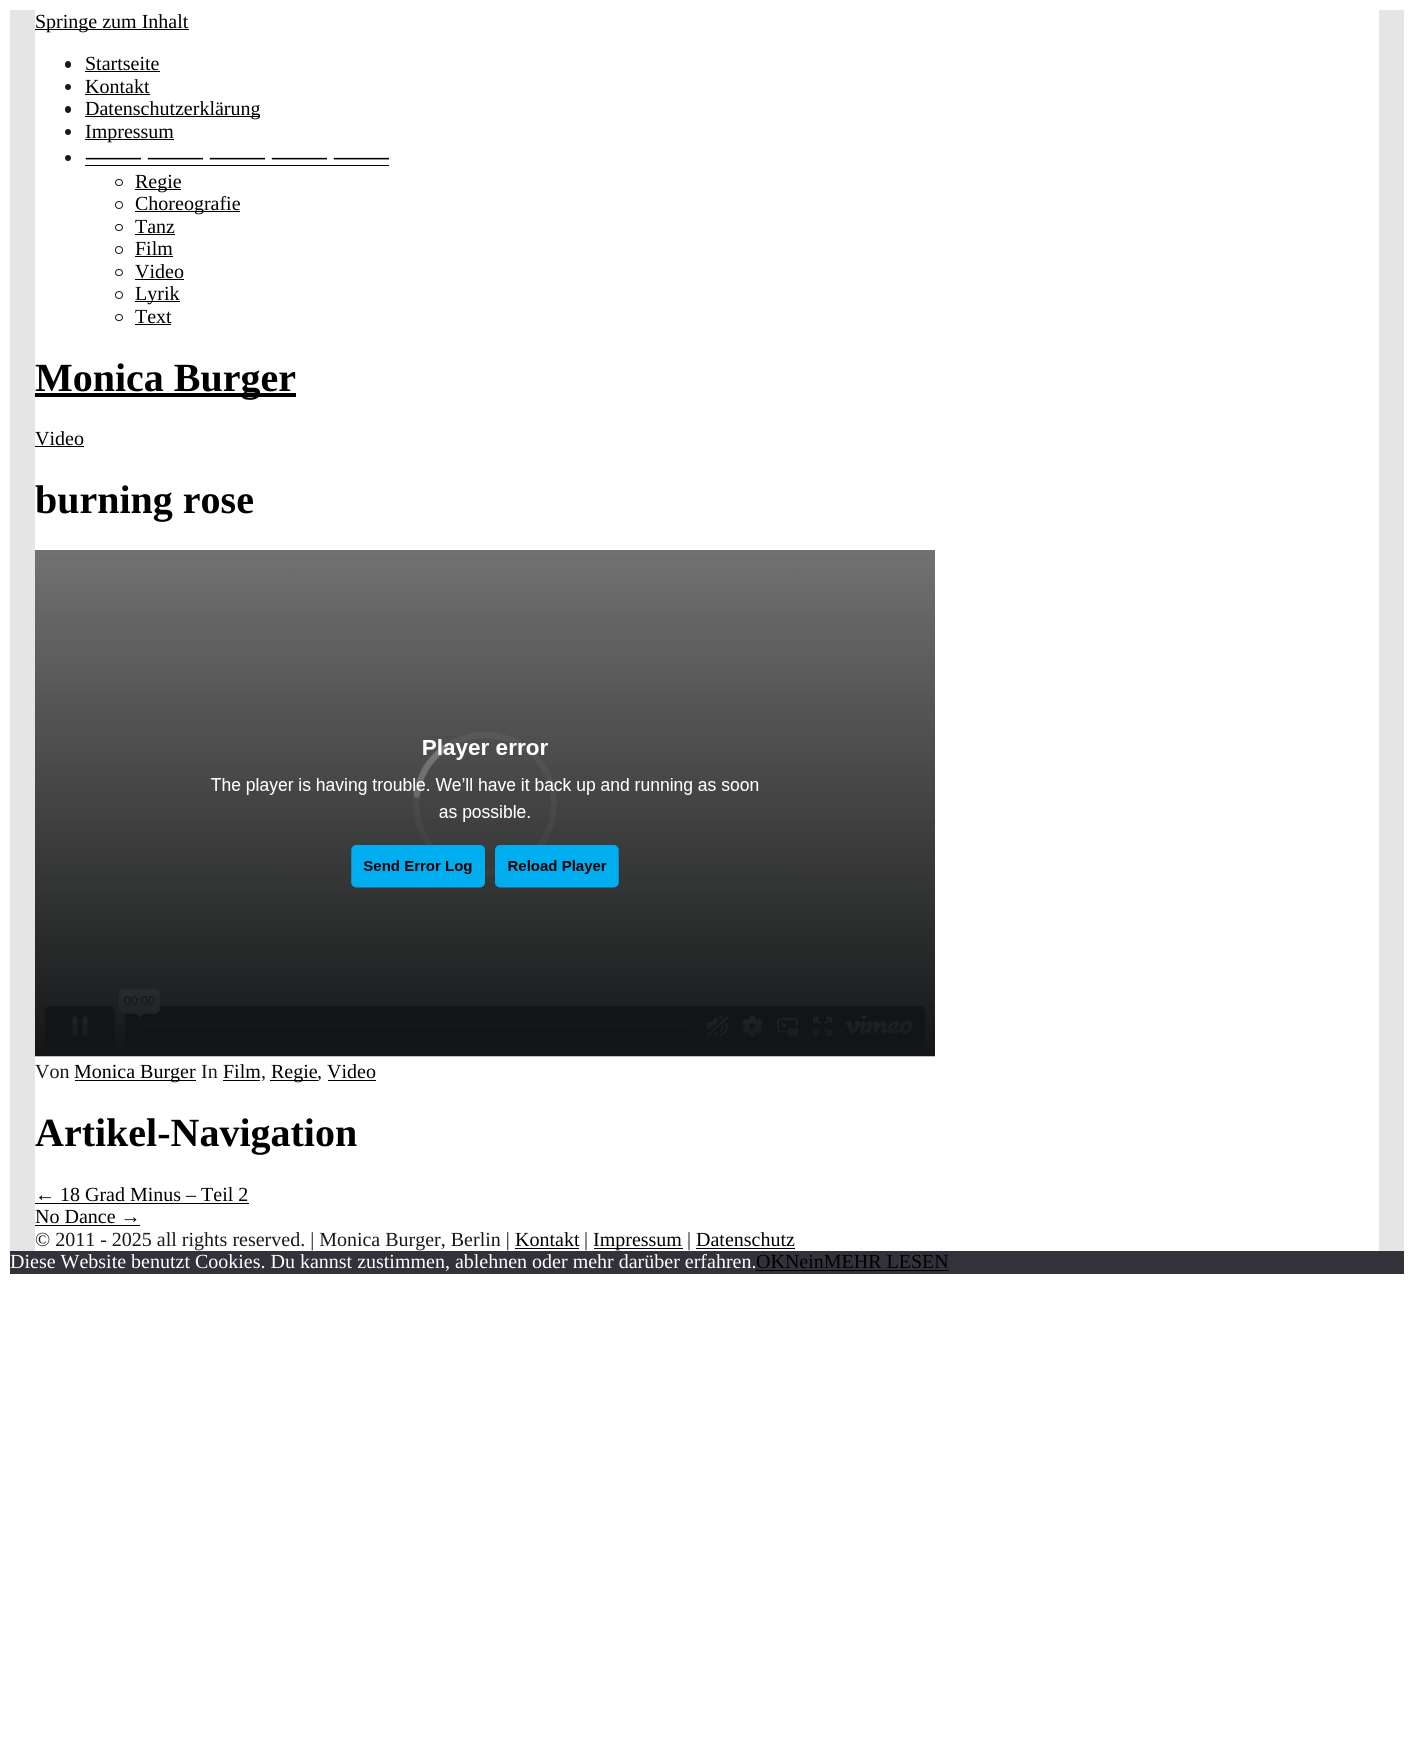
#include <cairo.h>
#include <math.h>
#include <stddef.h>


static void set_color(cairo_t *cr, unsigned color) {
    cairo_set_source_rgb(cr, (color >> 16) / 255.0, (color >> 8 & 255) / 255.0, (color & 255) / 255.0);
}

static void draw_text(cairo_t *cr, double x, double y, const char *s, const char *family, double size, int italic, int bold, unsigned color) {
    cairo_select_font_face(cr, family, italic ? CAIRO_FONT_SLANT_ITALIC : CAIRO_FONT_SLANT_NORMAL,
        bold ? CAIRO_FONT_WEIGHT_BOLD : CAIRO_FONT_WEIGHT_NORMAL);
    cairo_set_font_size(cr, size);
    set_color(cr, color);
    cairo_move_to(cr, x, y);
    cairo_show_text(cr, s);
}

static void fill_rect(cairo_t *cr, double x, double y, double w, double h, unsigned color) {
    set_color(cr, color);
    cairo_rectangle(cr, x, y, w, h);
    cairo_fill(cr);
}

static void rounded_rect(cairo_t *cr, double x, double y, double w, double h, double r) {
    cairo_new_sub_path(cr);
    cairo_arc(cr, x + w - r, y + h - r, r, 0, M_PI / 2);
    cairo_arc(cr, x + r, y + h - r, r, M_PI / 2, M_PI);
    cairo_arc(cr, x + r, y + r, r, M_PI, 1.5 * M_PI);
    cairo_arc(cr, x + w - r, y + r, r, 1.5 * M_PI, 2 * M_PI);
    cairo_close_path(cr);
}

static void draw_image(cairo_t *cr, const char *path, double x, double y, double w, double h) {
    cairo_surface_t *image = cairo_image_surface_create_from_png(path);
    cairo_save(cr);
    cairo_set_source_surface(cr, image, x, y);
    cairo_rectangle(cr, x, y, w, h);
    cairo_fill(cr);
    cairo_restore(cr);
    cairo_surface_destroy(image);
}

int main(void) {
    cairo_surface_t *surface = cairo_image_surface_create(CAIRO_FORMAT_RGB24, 1413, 1754);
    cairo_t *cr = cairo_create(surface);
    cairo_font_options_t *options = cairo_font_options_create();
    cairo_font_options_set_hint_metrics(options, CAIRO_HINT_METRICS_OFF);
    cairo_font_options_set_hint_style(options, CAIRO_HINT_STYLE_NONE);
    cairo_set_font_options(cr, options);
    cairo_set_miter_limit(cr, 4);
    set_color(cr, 0xFFFFFF);
    cairo_paint(cr);
    fill_rect(cr, 1379, 10, 25, 1241, 0xE5E5E5);
    fill_rect(cr, 10, 10, 25, 1241, 0xE5E5E5);
    fill_rect(cr, 35, 29, 154, 1, 0x000000);
    draw_text(cr, 35, 28, "Springe zum Inhalt", "Liberation Serif", 20, 0, 0, 0x000000);
    set_color(cr, 0x191919);
    rounded_rect(cr, 65, 61, 6, 7, 3);
    cairo_fill(cr);
    draw_text(cr, 85, 70, "Startseite", "Liberation Serif", 20, 0, 0, 0x000000);
    fill_rect(cr, 85, 71, 75, 1, 0x000000);
    set_color(cr, 0x191919);
    cairo_new_path(cr);
    cairo_arc(cr, 68, 87, 3, 0, 2 * M_PI);
    cairo_fill(cr);
    draw_text(cr, 85, 93, "Kontakt", "Liberation Serif", 20, 0, 0, 0x000000);
    fill_rect(cr, 85, 94, 65, 1, 0x000000);
    set_color(cr, 0x191919);
    rounded_rect(cr, 65, 106, 6, 7, 3);
    cairo_fill(cr);
    fill_rect(cr, 85, 116, 175, 1, 0x000000);
    draw_text(cr, 85, 115, "Datenschutzerklärung", "Liberation Serif", 20, 0, 0, 0x000000);
    set_color(cr, 0x191919);
    cairo_new_path(cr);
    cairo_arc(cr, 68, 132, 3, 0, 2 * M_PI);
    cairo_fill(cr);
    fill_rect(cr, 85, 139, 89, 1, 0x000000);
    draw_text(cr, 85, 138, "Impressum", "Liberation Serif", 20, 0, 0, 0x000000);
    set_color(cr, 0x191919);
    cairo_new_path(cr);
    cairo_arc(cr, 68, 158, 3, 0, 2 * M_PI);
    cairo_fill(cr);
    draw_text(cr, 85, 164, "⸻ ⸻ ⸻ ⸻ ⸻", "Noto Sans", 20, 0, 0, 0x000000);
    fill_rect(cr, 85, 165, 304, 1, 0x000000);
    rounded_rect(cr, 115.5, 179.5, 7, 6, 3);
    set_color(cr, 0x191919);
    cairo_set_line_width(cr, 1);
    cairo_stroke(cr);
    fill_rect(cr, 135, 189, 46, 1, 0x000000);
    draw_text(cr, 135, 188, "Regie", "Liberation Serif", 20, 0, 0, 0x000000);
    cairo_new_path(cr);
    cairo_arc(cr, 119, 205, 3.5, 0, 2 * M_PI);
    set_color(cr, 0x191919);
    cairo_stroke(cr);
    fill_rect(cr, 135, 211, 105, 1, 0x000000);
    draw_text(cr, 135, 210, "Choreografie", "Liberation Serif", 20, 0, 0, 0x000000);
    rounded_rect(cr, 115.5, 224.5, 7, 6, 3);
    set_color(cr, 0x191919);
    cairo_stroke(cr);
    draw_text(cr, 135, 233, "Tanz", "Liberation Serif", 20, 0, 0, 0x000000);
    fill_rect(cr, 135, 234, 40, 1, 0x000000);
    cairo_new_path(cr);
    cairo_arc(cr, 119, 250, 3.5, 0, 2 * M_PI);
    set_color(cr, 0x191919);
    cairo_stroke(cr);
    draw_text(cr, 135, 255, "Film", "Liberation Serif", 20, 0, 0, 0x000000);
    fill_rect(cr, 135, 256, 38, 1, 0x000000);
    rounded_rect(cr, 115.5, 269.5, 7, 6, 3);
    set_color(cr, 0x191919);
    cairo_stroke(cr);
    draw_text(cr, 135, 278, "Video", "Liberation Serif", 20, 0, 0, 0x000000);
    fill_rect(cr, 135, 279, 49, 1, 0x000000);
    cairo_new_path(cr);
    cairo_arc(cr, 119, 295, 3.5, 0, 2 * M_PI);
    set_color(cr, 0x191919);
    cairo_stroke(cr);
    fill_rect(cr, 135, 301, 45, 1, 0x000000);
    draw_text(cr, 135, 300, "Lyrik", "Liberation Serif", 20, 0, 0, 0x000000);
    rounded_rect(cr, 115.5, 314.5, 7, 6, 3);
    set_color(cr, 0x191919);
    cairo_stroke(cr);
    draw_text(cr, 135, 323, "Text", "Liberation Serif", 20, 0, 0, 0x000000);
    fill_rect(cr, 135, 324, 36, 1, 0x000000);
    fill_rect(cr, 35, 393, 261, 4, 0x000000);
    draw_text(cr, 35, 391, "Monica Burger", "Liberation Serif", 40, 0, 1, 0x000000);
    draw_text(cr, 35, 445, "Video", "Liberation Serif", 20, 0, 0, 0x000000);
    fill_rect(cr, 35, 446, 49, 1, 0x000000);
    draw_text(cr, 35, 513, "burning rose", "Liberation Serif", 40, 0, 1, 0x000000);
    draw_image(cr, "assets/img1.png", 35, 550, 900, 507);
    draw_text(cr, 35, 1078, "Von", "Liberation Serif", 20, 0, 0, 0x191919);
    fill_rect(cr, 75, 1080, 121, 1, 0x000000);
    draw_text(cr, 74, 1078, "Monica Burger", "Liberation Serif", 20, 0, 0, 0x000000);
    draw_text(cr, 201, 1078, "In", "Liberation Serif", 20, 0, 0, 0x191919);
    draw_text(cr, 223, 1078, "Film", "Liberation Serif", 20, 0, 0, 0x000000);
    draw_text(cr, 261, 1078, ",", "Liberation Serif", 20, 0, 0, 0x191919);
    fill_rect(cr, 223, 1080, 37, 1, 0x000000);
    fill_rect(cr, 270, 1080, 48, 1, 0x000000);
    draw_text(cr, 271, 1078, "Regie", "Liberation Serif", 20, 0, 0, 0x000000);
    draw_text(cr, 317, 1078, ",", "Liberation Serif", 20, 0, 0, 0x191919);
    fill_rect(cr, 328, 1080, 48, 1, 0x000000);
    draw_text(cr, 327, 1078, "Video", "Liberation Serif", 20, 0, 0, 0x000000);
    draw_text(cr, 35, 1146, "Artikel-Navigation", "Liberation Serif", 40, 0, 1, 0x000000);
    draw_text(cr, 35, 1201, "← 18 Grad Minus – Teil 2", "Liberation Serif", 20, 0, 0, 0x000000);
    fill_rect(cr, 35, 1203, 214, 1, 0x000000);
    draw_text(cr, 35, 1223, "No Dance →", "Liberation Serif", 20, 0, 0, 0x000000);
    fill_rect(cr, 35, 1225, 105, 1, 0x000000);
    draw_text(cr, 35, 1246, "© 2011 - 2025 all rights reserved. | Monica Burger, Berlin |", "Liberation Serif", 20, 0, 0, 0x191919);
    draw_text(cr, 515, 1246, "Kontakt", "Liberation Serif", 20, 0, 0, 0x000000);
    fill_rect(cr, 515, 1248, 64, 1, 0x000000);
    draw_text(cr, 584, 1246, "|", "Liberation Serif", 20, 0, 0, 0x191919);
    fill_rect(cr, 594, 1248, 89, 1, 0x000000);
    draw_text(cr, 593, 1246, "Impressum", "Liberation Serif", 20, 0, 0, 0x000000);
    draw_text(cr, 687, 1246, "|", "Liberation Serif", 20, 0, 0, 0x191919);
    draw_text(cr, 696, 1246, "Datenschutz", "Liberation Serif", 20, 0, 0, 0x000000);
    fill_rect(cr, 696, 1248, 99, 1, 0x000000);
    fill_rect(cr, 10, 1251, 1394, 23, 0x32323A);
    draw_text(cr, 10, 1268, "Diese Website benutzt Cookies. Du kannst zustimmen, ablehnen oder mehr darüber erfahren.", "Liberation Serif", 20, 0, 0, 0xFFFFFF);
    draw_text(cr, 756, 1268, "OKNeinMEHR LESEN", "Liberation Serif", 20, 0, 0, 0x000000);
    fill_rect(cr, 756, 1270, 193, 1, 0x000000);
    cairo_surface_write_to_png(surface, "output.png");
    cairo_font_options_destroy(options);
    cairo_destroy(cr);
    cairo_surface_destroy(surface);
    return 0;
}
